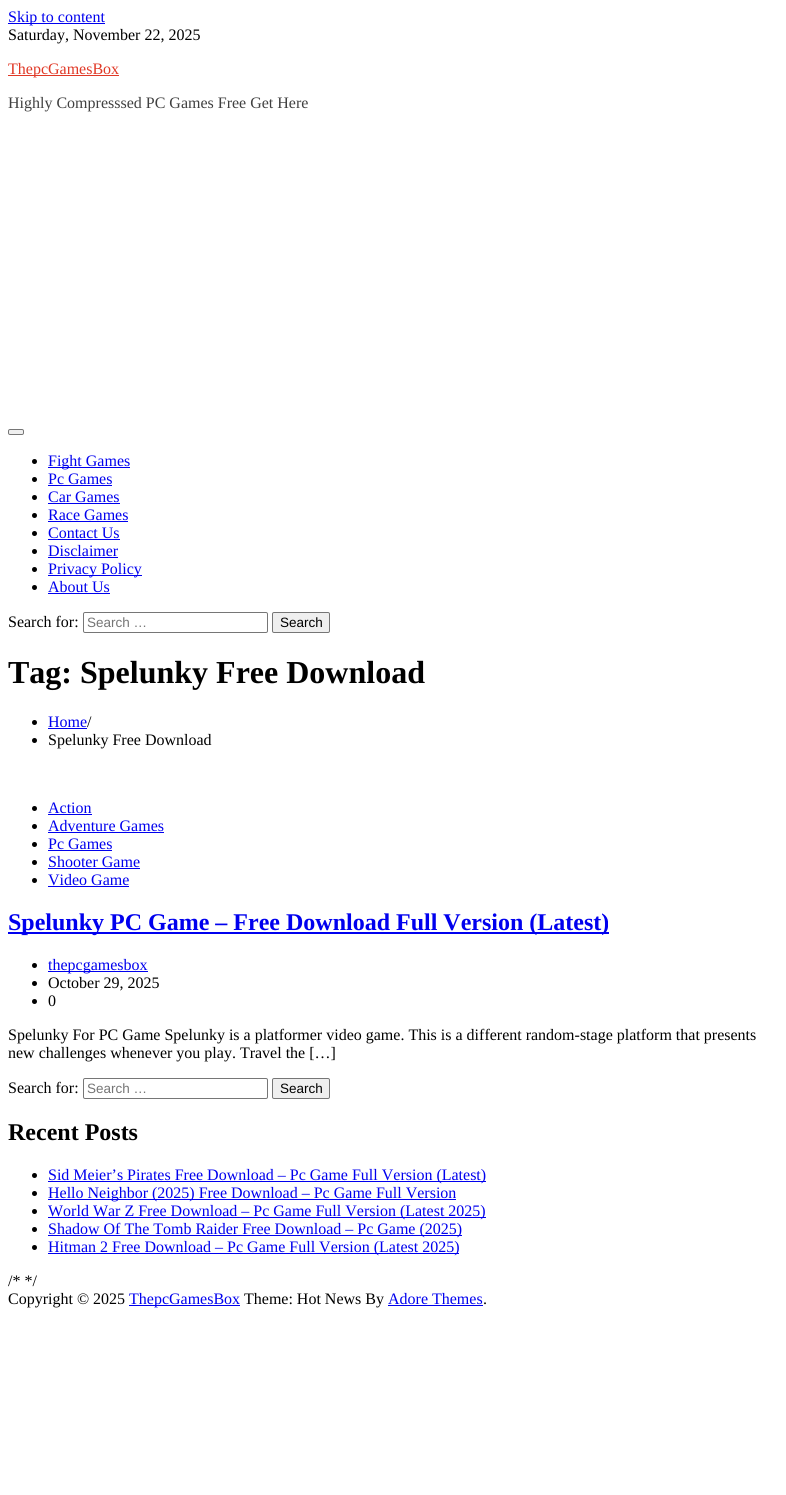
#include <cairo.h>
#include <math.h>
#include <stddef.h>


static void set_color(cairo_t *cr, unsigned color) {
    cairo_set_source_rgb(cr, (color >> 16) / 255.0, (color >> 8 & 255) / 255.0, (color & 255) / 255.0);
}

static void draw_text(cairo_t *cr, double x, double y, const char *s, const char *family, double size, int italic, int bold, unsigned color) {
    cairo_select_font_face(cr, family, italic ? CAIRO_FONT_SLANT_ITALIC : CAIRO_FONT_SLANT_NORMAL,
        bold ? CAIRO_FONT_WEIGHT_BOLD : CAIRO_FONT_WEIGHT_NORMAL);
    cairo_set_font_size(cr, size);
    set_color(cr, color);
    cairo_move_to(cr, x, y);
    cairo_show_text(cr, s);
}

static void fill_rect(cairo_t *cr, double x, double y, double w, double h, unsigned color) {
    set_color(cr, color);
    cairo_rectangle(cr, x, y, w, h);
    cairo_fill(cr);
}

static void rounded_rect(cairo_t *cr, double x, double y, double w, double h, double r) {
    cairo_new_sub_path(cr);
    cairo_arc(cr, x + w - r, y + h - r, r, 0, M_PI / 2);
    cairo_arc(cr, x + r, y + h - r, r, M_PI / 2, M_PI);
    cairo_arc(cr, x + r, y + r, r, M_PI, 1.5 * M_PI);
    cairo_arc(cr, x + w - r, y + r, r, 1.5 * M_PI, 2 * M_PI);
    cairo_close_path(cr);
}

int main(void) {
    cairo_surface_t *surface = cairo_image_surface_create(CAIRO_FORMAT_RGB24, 786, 1495);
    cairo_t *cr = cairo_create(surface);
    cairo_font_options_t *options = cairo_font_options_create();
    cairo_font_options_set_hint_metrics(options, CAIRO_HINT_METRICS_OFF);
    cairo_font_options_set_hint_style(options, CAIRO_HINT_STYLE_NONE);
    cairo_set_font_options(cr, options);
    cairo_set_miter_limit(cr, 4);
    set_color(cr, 0xFFFFFF);
    cairo_paint(cr);
    fill_rect(cr, 8, 23, 97, 1, 0x0000EE);
    draw_text(cr, 8, 22, "Skip to content", "Liberation Serif", 16, 0, 0, 0x0000EE);
    draw_text(cr, 8, 40, "Saturday, November 22, 2025", "Liberation Serif", 16, 0, 0, 0x000000);
    fill_rect(cr, 8, 75, 111, 1, 0xE03826);
    draw_text(cr, 8, 74, "ThepcGamesBox", "Liberation Serif", 16, 0, 0, 0xE03826);
    draw_text(cr, 8, 108, "Highly Compresssed PC Games Free Get Here", "Liberation Serif", 16, 0, 0, 0x404040);
    set_color(cr, 0xEFEFEF);
    rounded_rect(cr, 8.5, 429.5, 15, 5, 1.5);
    cairo_fill_preserve(cr);
    set_color(cr, 0x767676);
    cairo_set_line_width(cr, 1);
    cairo_stroke(cr);
    set_color(cr, 0x000000);
    cairo_arc(cr, 34.5, 461.5, 2.5, 0, 2 * M_PI);
    cairo_fill(cr);
    fill_rect(cr, 48, 467, 82, 1, 0x0000EE);
    draw_text(cr, 48, 466, "Fight Games", "Liberation Serif", 16, 0, 0, 0x0000EE);
    set_color(cr, 0x000000);
    cairo_new_path(cr);
    cairo_arc(cr, 34.5, 479.5, 2.5, 0, 2 * M_PI);
    cairo_fill(cr);
    draw_text(cr, 48, 484, "Pc Games", "Liberation Serif", 16, 0, 0, 0x0000EE);
    fill_rect(cr, 48, 485, 64, 1, 0x0000EE);
    set_color(cr, 0x000000);
    cairo_new_path(cr);
    cairo_arc(cr, 34.5, 497.5, 2.5, 0, 2 * M_PI);
    cairo_fill(cr);
    draw_text(cr, 48, 502, "Car Games", "Liberation Serif", 16, 0, 0, 0x0000EE);
    fill_rect(cr, 48, 503, 72, 1, 0x0000EE);
    set_color(cr, 0x000000);
    cairo_new_path(cr);
    cairo_arc(cr, 34.5, 515.5, 2.5, 0, 2 * M_PI);
    cairo_fill(cr);
    draw_text(cr, 48, 520, "Race Games", "Liberation Serif", 16, 0, 0, 0x0000EE);
    fill_rect(cr, 48, 521, 80, 1, 0x0000EE);
    set_color(cr, 0x000000);
    cairo_new_path(cr);
    cairo_arc(cr, 34.5, 533.5, 2.5, 0, 2 * M_PI);
    cairo_fill(cr);
    draw_text(cr, 48, 538, "Contact Us", "Liberation Serif", 16, 0, 0, 0x0000EE);
    fill_rect(cr, 48, 539, 72, 1, 0x0000EE);
    set_color(cr, 0x000000);
    cairo_new_path(cr);
    cairo_arc(cr, 34.5, 551.5, 2.5, 0, 2 * M_PI);
    cairo_fill(cr);
    draw_text(cr, 48, 556, "Disclaimer", "Liberation Serif", 16, 0, 0, 0x0000EE);
    fill_rect(cr, 48, 557, 70, 1, 0x0000EE);
    set_color(cr, 0x000000);
    cairo_new_path(cr);
    cairo_arc(cr, 34.5, 569.5, 2.5, 0, 2 * M_PI);
    cairo_fill(cr);
    fill_rect(cr, 48, 575, 94, 1, 0x0000EE);
    draw_text(cr, 48, 574, "Privacy Policy", "Liberation Serif", 16, 0, 0, 0x0000EE);
    set_color(cr, 0x000000);
    cairo_new_path(cr);
    cairo_arc(cr, 34.5, 587.5, 2.5, 0, 2 * M_PI);
    cairo_fill(cr);
    draw_text(cr, 48, 592, "About Us", "Liberation Serif", 16, 0, 0, 0x0000EE);
    fill_rect(cr, 48, 593, 62, 1, 0x0000EE);
    draw_text(cr, 8, 627, "Search for:", "Liberation Serif", 16, 0, 0, 0x000000);
    rounded_rect(cr, 83.5, 612.5, 184, 20, 1.5);
    set_color(cr, 0x767676);
    cairo_stroke(cr);
    draw_text(cr, 87, 627, "Search …", "Liberation Sans", 13.5, 0, 0, 0x757575);
    set_color(cr, 0xEFEFEF);
    rounded_rect(cr, 272.5, 612.5, 57, 20, 1.5);
    cairo_fill_preserve(cr);
    set_color(cr, 0x767676);
    cairo_stroke(cr);
    draw_text(cr, 280, 627, "Search", "Liberation Sans", 13.5, 0, 0, 0x000000);
    draw_text(cr, 8, 683, "Tag: Spelunky Free Download", "Liberation Serif", 32, 0, 1, 0x000000);
    cairo_new_path(cr);
    cairo_arc(cr, 34.5, 722.5, 2.5, 0, 2 * M_PI);
    cairo_fill(cr);
    draw_text(cr, 48, 727, "Home", "Liberation Serif", 16, 0, 0, 0x0000EE);
    fill_rect(cr, 48, 728, 39, 1, 0x0000EE);
    draw_text(cr, 87, 727, "/", "Liberation Serif", 16, 0, 0, 0x000000);
    cairo_new_path(cr);
    cairo_arc(cr, 34.5, 740.5, 2.5, 0, 2 * M_PI);
    cairo_fill(cr);
    draw_text(cr, 48, 745, "Spelunky Free Download", "Liberation Serif", 16, 0, 0, 0x000000);
    cairo_new_path(cr);
    cairo_arc(cr, 34.5, 808.5, 2.5, 0, 2 * M_PI);
    cairo_fill(cr);
    draw_text(cr, 48, 813, "Action", "Liberation Serif", 16, 0, 0, 0x0000EE);
    fill_rect(cr, 48, 814, 44, 1, 0x0000EE);
    set_color(cr, 0x000000);
    cairo_new_path(cr);
    cairo_arc(cr, 34.5, 826.5, 2.5, 0, 2 * M_PI);
    cairo_fill(cr);
    draw_text(cr, 48, 831, "Adventure Games", "Liberation Serif", 16, 0, 0, 0x0000EE);
    fill_rect(cr, 48, 832, 116, 1, 0x0000EE);
    set_color(cr, 0x000000);
    cairo_new_path(cr);
    cairo_arc(cr, 34.5, 844.5, 2.5, 0, 2 * M_PI);
    cairo_fill(cr);
    draw_text(cr, 48, 849, "Pc Games", "Liberation Serif", 16, 0, 0, 0x0000EE);
    fill_rect(cr, 48, 850, 64, 1, 0x0000EE);
    set_color(cr, 0x000000);
    cairo_new_path(cr);
    cairo_arc(cr, 34.5, 862.5, 2.5, 0, 2 * M_PI);
    cairo_fill(cr);
    draw_text(cr, 48, 867, "Shooter Game", "Liberation Serif", 16, 0, 0, 0x0000EE);
    fill_rect(cr, 48, 868, 92, 1, 0x0000EE);
    set_color(cr, 0x000000);
    cairo_new_path(cr);
    cairo_arc(cr, 34.5, 880.5, 2.5, 0, 2 * M_PI);
    cairo_fill(cr);
    draw_text(cr, 48, 885, "Video Game", "Liberation Serif", 16, 0, 0, 0x0000EE);
    fill_rect(cr, 48, 886, 81, 1, 0x0000EE);
    fill_rect(cr, 8, 932, 601, 2, 0x0000EE);
    draw_text(cr, 8, 930, "Spelunky PC Game – Free Download Full Version (Latest)", "Liberation Serif", 24, 0, 1, 0x0000EE);
    set_color(cr, 0x000000);
    cairo_new_path(cr);
    cairo_arc(cr, 34.5, 965.5, 2.5, 0, 2 * M_PI);
    cairo_fill(cr);
    fill_rect(cr, 48, 971, 100, 1, 0x0000EE);
    draw_text(cr, 48, 970, "thepcgamesbox", "Liberation Serif", 16, 0, 0, 0x0000EE);
    set_color(cr, 0x000000);
    cairo_new_path(cr);
    cairo_arc(cr, 34.5, 983.5, 2.5, 0, 2 * M_PI);
    cairo_fill(cr);
    draw_text(cr, 48, 988, "October 29, 2025", "Liberation Serif", 16, 0, 0, 0x000000);
    cairo_new_path(cr);
    cairo_arc(cr, 34.5, 1001.5, 2.5, 0, 2 * M_PI);
    cairo_fill(cr);
    draw_text(cr, 48, 1006, "0", "Liberation Serif", 16, 0, 0, 0x000000);
    draw_text(cr, 8, 1040, "Spelunky For PC Game Spelunky is a platformer video game. This is a different random-stage platform that presents", "Liberation Serif", 16, 0, 0, 0x000000);
    draw_text(cr, 8, 1058, "new challenges whenever you play. Travel the […]", "Liberation Serif", 16, 0, 0, 0x000000);
    draw_text(cr, 8, 1093, "Search for:", "Liberation Serif", 16, 0, 0, 0x000000);
    rounded_rect(cr, 83.5, 1078.5, 184, 20, 1.5);
    set_color(cr, 0x767676);
    cairo_stroke(cr);
    draw_text(cr, 87, 1093, "Search …", "Liberation Sans", 13.5, 0, 0, 0x757575);
    set_color(cr, 0xEFEFEF);
    rounded_rect(cr, 272.5, 1078.5, 57, 20, 1.5);
    cairo_fill_preserve(cr);
    set_color(cr, 0x767676);
    cairo_stroke(cr);
    draw_text(cr, 280, 1093, "Search", "Liberation Sans", 13.5, 0, 0, 0x000000);
    draw_text(cr, 8, 1140, "Recent Posts", "Liberation Serif", 24, 0, 1, 0x000000);
    cairo_new_path(cr);
    cairo_arc(cr, 34.5, 1175.5, 2.5, 0, 2 * M_PI);
    cairo_fill(cr);
    fill_rect(cr, 48, 1181, 438, 1, 0x0000EE);
    draw_text(cr, 48, 1180, "Sid Meier’s Pirates Free Download – Pc Game Full Version (Latest)", "Liberation Serif", 16, 0, 0, 0x0000EE);
    set_color(cr, 0x000000);
    cairo_new_path(cr);
    cairo_arc(cr, 34.5, 1193.5, 2.5, 0, 2 * M_PI);
    cairo_fill(cr);
    fill_rect(cr, 48, 1199, 408, 1, 0x0000EE);
    draw_text(cr, 48, 1198, "Hello Neighbor (2025) Free Download – Pc Game Full Version", "Liberation Serif", 16, 0, 0, 0x0000EE);
    set_color(cr, 0x000000);
    cairo_new_path(cr);
    cairo_arc(cr, 34.5, 1211.5, 2.5, 0, 2 * M_PI);
    cairo_fill(cr);
    fill_rect(cr, 48, 1217, 438, 1, 0x0000EE);
    draw_text(cr, 48, 1216, "World War Z Free Download – Pc Game Full Version (Latest 2025)", "Liberation Serif", 16, 0, 0, 0x0000EE);
    set_color(cr, 0x000000);
    cairo_new_path(cr);
    cairo_arc(cr, 34.5, 1229.5, 2.5, 0, 2 * M_PI);
    cairo_fill(cr);
    fill_rect(cr, 48, 1235, 414, 1, 0x0000EE);
    draw_text(cr, 48, 1234, "Shadow Of The Tomb Raider Free Download – Pc Game (2025)", "Liberation Serif", 16, 0, 0, 0x0000EE);
    set_color(cr, 0x000000);
    cairo_new_path(cr);
    cairo_arc(cr, 34.5, 1247.5, 2.5, 0, 2 * M_PI);
    cairo_fill(cr);
    fill_rect(cr, 48, 1253, 411, 1, 0x0000EE);
    draw_text(cr, 48, 1252, "Hitman 2 Free Download – Pc Game Full Version (Latest 2025)", "Liberation Serif", 16, 0, 0, 0x0000EE);
    draw_text(cr, 8, 1286, "/* */", "Liberation Serif", 16, 0, 0, 0x000000);
    draw_text(cr, 8, 1304, "Copyright © 2025", "Liberation Serif", 16, 0, 0, 0x000000);
    fill_rect(cr, 129, 1305, 111, 1, 0x0000EE);
    draw_text(cr, 129, 1304, "ThepcGamesBox", "Liberation Serif", 16, 0, 0, 0x0000EE);
    draw_text(cr, 244, 1304, "Theme: Hot News By", "Liberation Serif", 16, 0, 0, 0x000000);
    draw_text(cr, 388, 1304, "Adore Themes", "Liberation Serif", 16, 0, 0, 0x0000EE);
    draw_text(cr, 483, 1304, ".", "Liberation Serif", 16, 0, 0, 0x000000);
    fill_rect(cr, 388, 1305, 95, 1, 0x0000EE);
    cairo_surface_write_to_png(surface, "output.png");
    cairo_font_options_destroy(options);
    cairo_destroy(cr);
    cairo_surface_destroy(surface);
    return 0;
}
